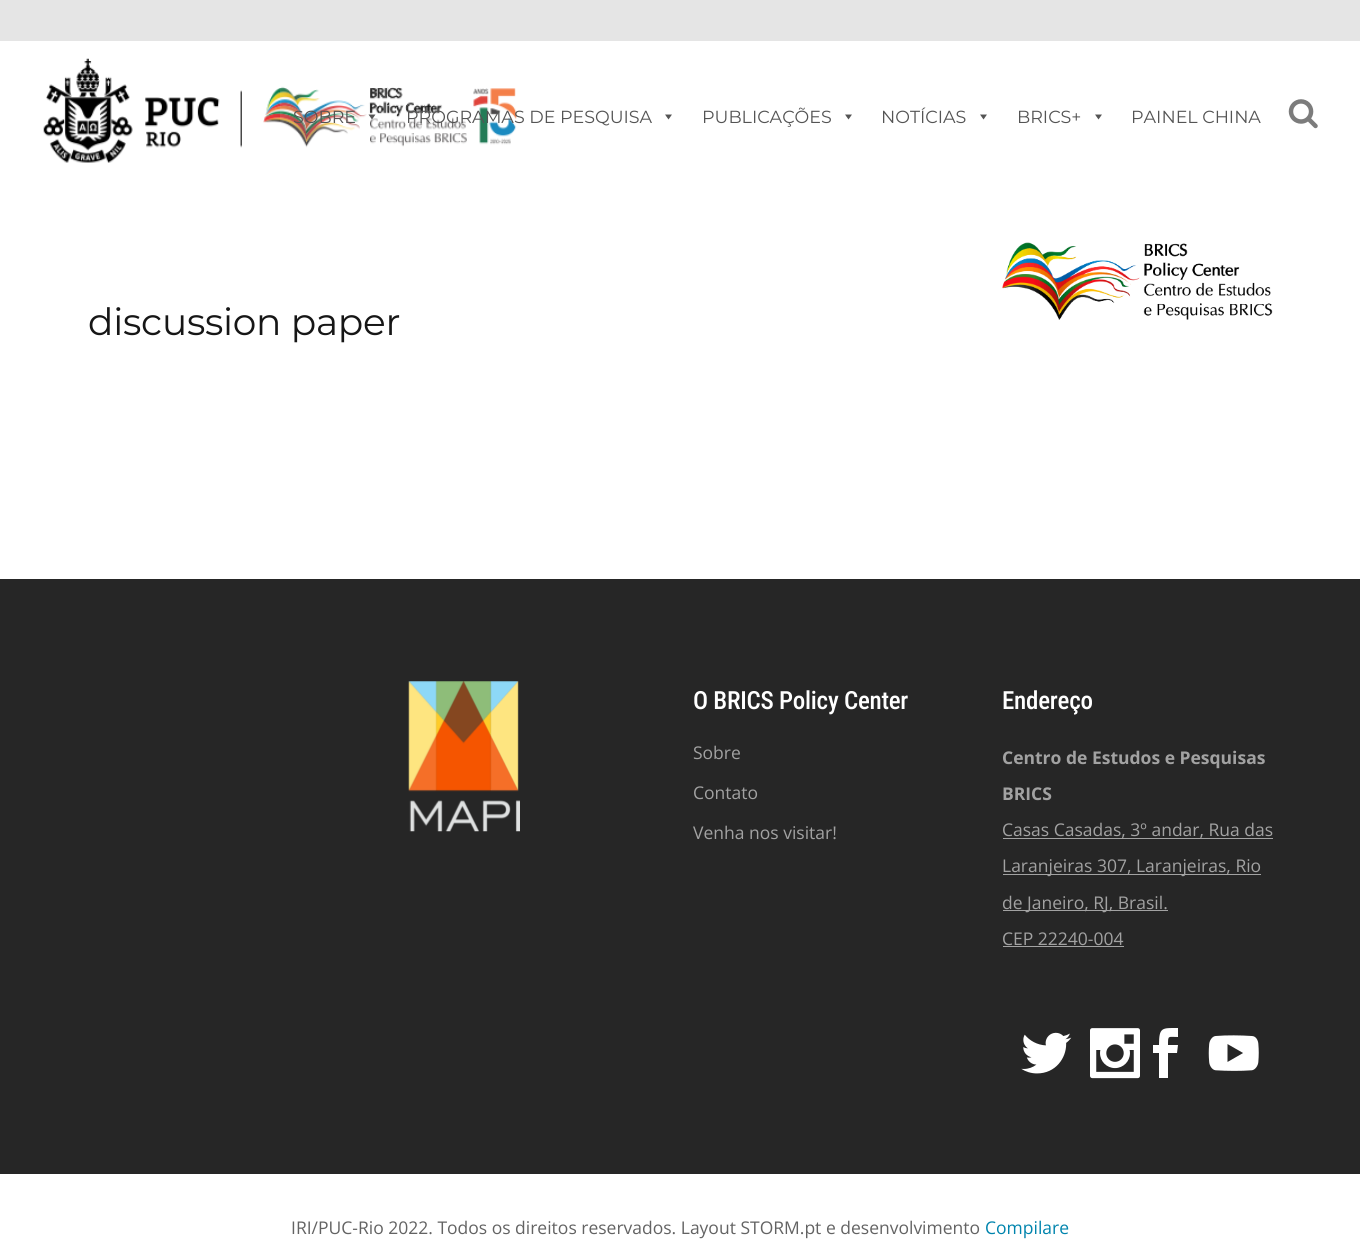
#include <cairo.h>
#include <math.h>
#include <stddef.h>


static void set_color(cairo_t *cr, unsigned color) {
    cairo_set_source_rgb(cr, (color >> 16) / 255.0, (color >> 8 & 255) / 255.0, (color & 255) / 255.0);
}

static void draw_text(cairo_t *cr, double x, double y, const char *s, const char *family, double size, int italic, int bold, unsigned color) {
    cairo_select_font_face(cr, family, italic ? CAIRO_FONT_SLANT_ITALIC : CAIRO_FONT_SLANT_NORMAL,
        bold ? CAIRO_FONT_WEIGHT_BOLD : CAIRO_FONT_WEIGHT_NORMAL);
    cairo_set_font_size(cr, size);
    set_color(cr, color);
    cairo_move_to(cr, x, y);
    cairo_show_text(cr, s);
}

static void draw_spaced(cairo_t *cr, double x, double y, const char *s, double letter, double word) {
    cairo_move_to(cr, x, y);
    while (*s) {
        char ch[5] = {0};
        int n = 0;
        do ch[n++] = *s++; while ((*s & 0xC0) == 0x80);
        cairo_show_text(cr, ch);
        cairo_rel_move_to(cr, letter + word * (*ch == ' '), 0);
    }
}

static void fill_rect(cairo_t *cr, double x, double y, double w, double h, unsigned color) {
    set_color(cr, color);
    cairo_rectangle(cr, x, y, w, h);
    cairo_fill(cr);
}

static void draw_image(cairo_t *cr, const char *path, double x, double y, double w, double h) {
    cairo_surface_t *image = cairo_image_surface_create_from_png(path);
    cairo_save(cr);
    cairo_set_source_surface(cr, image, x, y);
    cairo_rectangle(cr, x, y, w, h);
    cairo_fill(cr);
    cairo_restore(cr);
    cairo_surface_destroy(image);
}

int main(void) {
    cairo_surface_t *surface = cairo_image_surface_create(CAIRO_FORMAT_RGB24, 1360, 1259);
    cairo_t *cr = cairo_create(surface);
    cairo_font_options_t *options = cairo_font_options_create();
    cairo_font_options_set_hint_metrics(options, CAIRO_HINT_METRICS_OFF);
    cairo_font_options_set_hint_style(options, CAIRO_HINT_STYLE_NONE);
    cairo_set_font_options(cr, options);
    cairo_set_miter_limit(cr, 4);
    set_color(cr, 0xFFFFFF);
    cairo_paint(cr);
    fill_rect(cr, 0, 0, 1360, 41, 0xE5E5E5);
    draw_image(cr, "assets/img1.png", 43, 58, 474, 105);
    cairo_set_source_rgba(cr, 1, 1, 1, 0.1);
    cairo_rectangle(cr, 280, 87, 237, 60);
    cairo_fill(cr);
    draw_text(cr, 293, 123, "SOBRE", "Montserrat", 17.5, 0, 0, 0x545454);
    cairo_new_path(cr);
    cairo_move_to(cr, 375.5, 114.5);
    cairo_line_to(cr, 372, 119.5);
    cairo_line_to(cr, 368.5, 114.5);
    cairo_close_path(cr);
    cairo_fill(cr);
    draw_text(cr, 406, 123, "PROGRAMAS DE PESQUISA", "Montserrat", 17.5, 0, 0, 0x545454);
    cairo_new_path(cr);
    cairo_move_to(cr, 672, 114.5);
    cairo_line_to(cr, 668.5, 119.5);
    cairo_line_to(cr, 665, 114.5);
    cairo_close_path(cr);
    cairo_fill(cr);
    draw_text(cr, 702, 123, "PUBLICAÇÕES", "Montserrat", 17.5, 0, 0, 0x545454);
    cairo_new_path(cr);
    cairo_move_to(cr, 852, 114.5);
    cairo_line_to(cr, 848.5, 119.5);
    cairo_line_to(cr, 845, 114.5);
    cairo_close_path(cr);
    cairo_fill(cr);
    draw_text(cr, 881, 123, "NOTÍCIAS", "Montserrat", 17.5, 0, 0, 0x545454);
    cairo_new_path(cr);
    cairo_move_to(cr, 987, 114.5);
    cairo_line_to(cr, 983.5, 119.5);
    cairo_line_to(cr, 980, 114.5);
    cairo_close_path(cr);
    cairo_fill(cr);
    draw_text(cr, 1017, 123, "BRICS+", "Montserrat", 17.5, 0, 0, 0x545454);
    cairo_new_path(cr);
    cairo_move_to(cr, 1102, 114.5);
    cairo_line_to(cr, 1098.5, 119.5);
    cairo_line_to(cr, 1095, 114.5);
    cairo_close_path(cr);
    cairo_fill(cr);
    draw_text(cr, 1131, 123, "PAINEL CHINA", "Montserrat", 17.5, 0, 0, 0x545454);
    draw_image(cr, "assets/img2.png", 1288, 99, 30, 30);
    draw_image(cr, "assets/img3.png", 1002, 242, 271, 78);
    cairo_set_font_size(cr, 37.5);
    set_color(cr, 0x161616);
    draw_spaced(cr, 88, 335, "discussion paper", -0.25, 0);
    fill_rect(cr, 0, 579, 1360, 595, 0x262626);
    draw_image(cr, "assets/img4.png", 408, 681, 112, 151);
    cairo_select_font_face(cr, "Roboto Condensed Medium", CAIRO_FONT_SLANT_NORMAL, CAIRO_FONT_WEIGHT_NORMAL);
    cairo_set_font_size(cr, 25);
    set_color(cr, 0xFFFFFF);
    draw_spaced(cr, 693, 709, "O BRICS Policy Center", -0.25, 0);
    draw_text(cr, 693, 759, "Sobre", "Open Sans", 17.5, 0, 0, 0xA2A2A2);
    draw_text(cr, 693, 799, "Contato", "Open Sans", 17.5, 0, 0, 0xA2A2A2);
    draw_text(cr, 693, 839, "Venha nos visitar!", "Open Sans", 17.5, 0, 0, 0xA2A2A2);
    cairo_select_font_face(cr, "Roboto Condensed Medium", CAIRO_FONT_SLANT_NORMAL, CAIRO_FONT_WEIGHT_NORMAL);
    cairo_set_font_size(cr, 25);
    set_color(cr, 0xFFFFFF);
    draw_spaced(cr, 1002, 709, "Endereço", -0.25, 0);
    draw_text(cr, 1002, 764, "Centro de Estudos e Pesquisas", "Open Sans", 17.5, 0, 1, 0xA2A2A2);
    draw_text(cr, 1002, 800, "BRICS", "Open Sans", 17.5, 0, 1, 0xA2A2A2);
    fill_rect(cr, 1003, 838, 270, 1, 0xA2A2A2);
    draw_text(cr, 1002, 836, "Casas Casadas, 3º andar, Rua das", "Open Sans", 17.5, 0, 0, 0xA2A2A2);
    fill_rect(cr, 1003, 874, 258, 1, 0xA2A2A2);
    draw_text(cr, 1002, 872, "Laranjeiras 307, Laranjeiras, Rio", "Open Sans", 17.5, 0, 0, 0xA2A2A2);
    fill_rect(cr, 1003, 910, 165, 1, 0xA2A2A2);
    draw_text(cr, 1002, 909, "de Janeiro, RJ, Brasil.", "Open Sans", 17.5, 0, 0, 0xA2A2A2);
    draw_text(cr, 1002, 945, "CEP 22240-004", "Open Sans", 17.5, 0, 0, 0xA2A2A2);
    fill_rect(cr, 1003, 946, 121, 1, 0xA2A2A2);
    draw_image(cr, "assets/img5.png", 1021, 1032, 51, 42);
    draw_image(cr, "assets/img6.png", 1090, 1028, 50, 51);
    set_color(cr, 0xFFFFFF);
    cairo_new_path(cr);
    cairo_move_to(cr, 1159, 1078);
    cairo_line_to(cr, 1159, 1053);
    cairo_line_to(cr, 1153, 1053);
    cairo_line_to(cr, 1153, 1045);
    cairo_line_to(cr, 1159, 1045);
    cairo_curve_to(cr, 1159, 1027, 1162, 1028, 1178, 1028);
    cairo_line_to(cr, 1178, 1037);
    cairo_curve_to(cr, 1168, 1037, 1168, 1035, 1168, 1045);
    cairo_line_to(cr, 1178, 1045);
    cairo_line_to(cr, 1177, 1053);
    cairo_line_to(cr, 1168, 1053);
    cairo_line_to(cr, 1168, 1078);
    cairo_close_path(cr);
    cairo_fill(cr);
    draw_image(cr, "assets/img7.png", 1208, 1035, 51, 36);
    draw_text(cr, 291, 1234, "IRI/PUC-Rio 2022. Todos os direitos reservados. Layout STORM.pt e desenvolvimento", "Open Sans", 17.5, 0, 0, 0x636363);
    draw_text(cr, 985, 1234, "Compilare", "Open Sans", 17.5, 0, 0, 0x0084AD);
    cairo_surface_write_to_png(surface, "output.png");
    cairo_font_options_destroy(options);
    cairo_destroy(cr);
    cairo_surface_destroy(surface);
    return 0;
}
